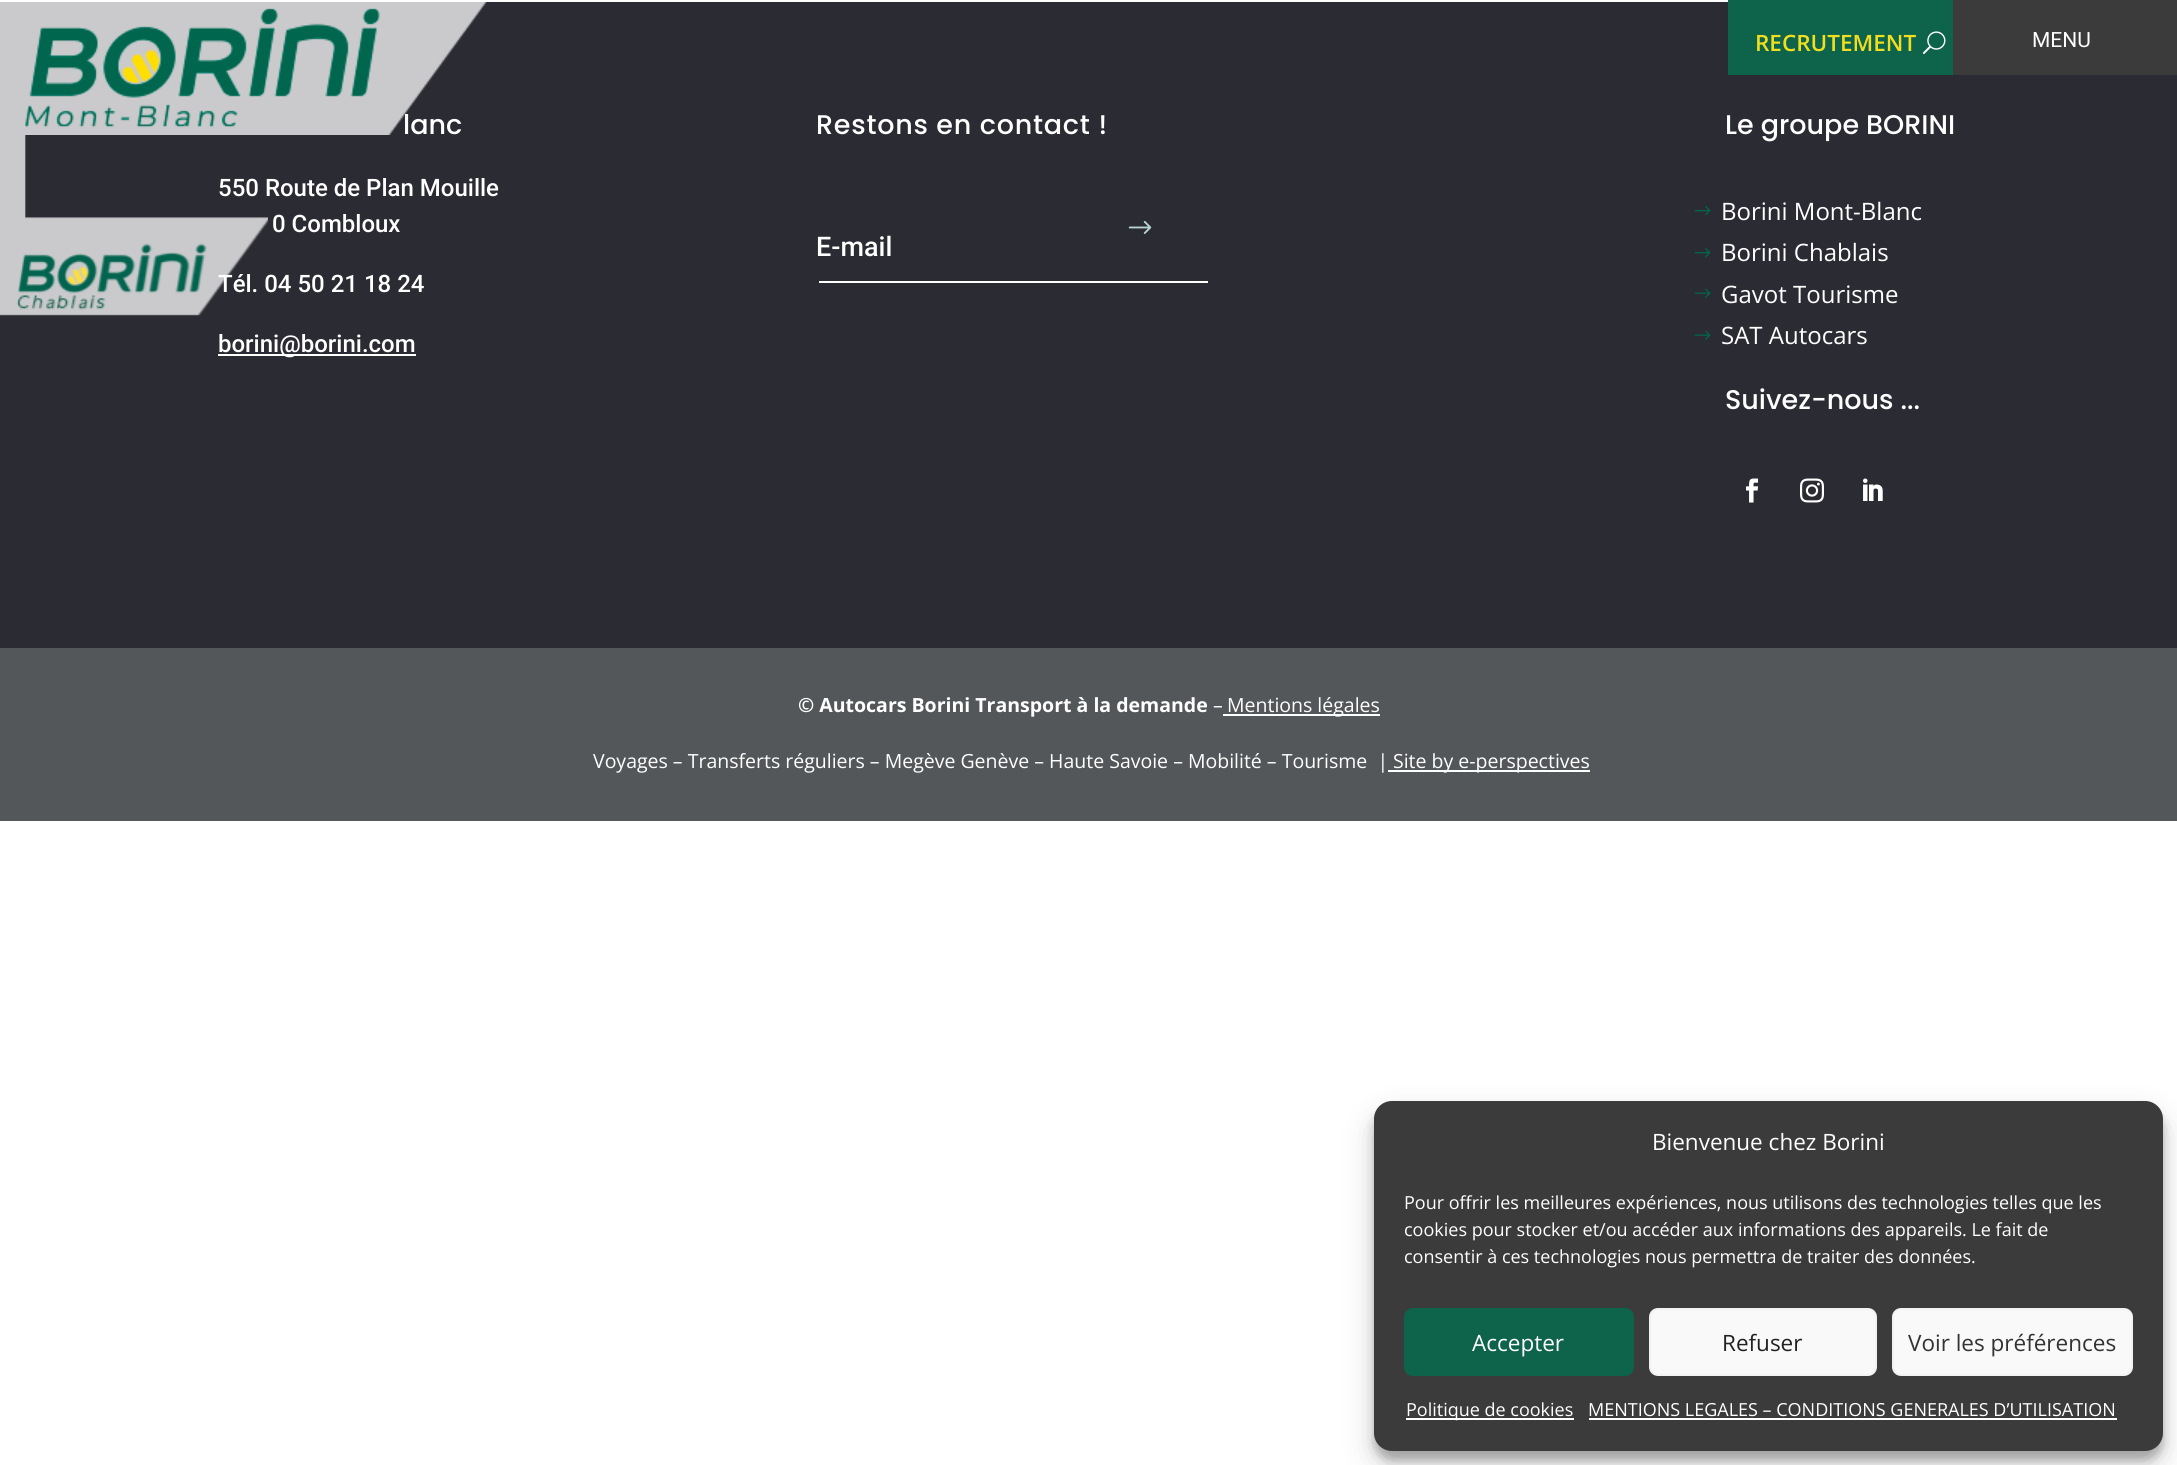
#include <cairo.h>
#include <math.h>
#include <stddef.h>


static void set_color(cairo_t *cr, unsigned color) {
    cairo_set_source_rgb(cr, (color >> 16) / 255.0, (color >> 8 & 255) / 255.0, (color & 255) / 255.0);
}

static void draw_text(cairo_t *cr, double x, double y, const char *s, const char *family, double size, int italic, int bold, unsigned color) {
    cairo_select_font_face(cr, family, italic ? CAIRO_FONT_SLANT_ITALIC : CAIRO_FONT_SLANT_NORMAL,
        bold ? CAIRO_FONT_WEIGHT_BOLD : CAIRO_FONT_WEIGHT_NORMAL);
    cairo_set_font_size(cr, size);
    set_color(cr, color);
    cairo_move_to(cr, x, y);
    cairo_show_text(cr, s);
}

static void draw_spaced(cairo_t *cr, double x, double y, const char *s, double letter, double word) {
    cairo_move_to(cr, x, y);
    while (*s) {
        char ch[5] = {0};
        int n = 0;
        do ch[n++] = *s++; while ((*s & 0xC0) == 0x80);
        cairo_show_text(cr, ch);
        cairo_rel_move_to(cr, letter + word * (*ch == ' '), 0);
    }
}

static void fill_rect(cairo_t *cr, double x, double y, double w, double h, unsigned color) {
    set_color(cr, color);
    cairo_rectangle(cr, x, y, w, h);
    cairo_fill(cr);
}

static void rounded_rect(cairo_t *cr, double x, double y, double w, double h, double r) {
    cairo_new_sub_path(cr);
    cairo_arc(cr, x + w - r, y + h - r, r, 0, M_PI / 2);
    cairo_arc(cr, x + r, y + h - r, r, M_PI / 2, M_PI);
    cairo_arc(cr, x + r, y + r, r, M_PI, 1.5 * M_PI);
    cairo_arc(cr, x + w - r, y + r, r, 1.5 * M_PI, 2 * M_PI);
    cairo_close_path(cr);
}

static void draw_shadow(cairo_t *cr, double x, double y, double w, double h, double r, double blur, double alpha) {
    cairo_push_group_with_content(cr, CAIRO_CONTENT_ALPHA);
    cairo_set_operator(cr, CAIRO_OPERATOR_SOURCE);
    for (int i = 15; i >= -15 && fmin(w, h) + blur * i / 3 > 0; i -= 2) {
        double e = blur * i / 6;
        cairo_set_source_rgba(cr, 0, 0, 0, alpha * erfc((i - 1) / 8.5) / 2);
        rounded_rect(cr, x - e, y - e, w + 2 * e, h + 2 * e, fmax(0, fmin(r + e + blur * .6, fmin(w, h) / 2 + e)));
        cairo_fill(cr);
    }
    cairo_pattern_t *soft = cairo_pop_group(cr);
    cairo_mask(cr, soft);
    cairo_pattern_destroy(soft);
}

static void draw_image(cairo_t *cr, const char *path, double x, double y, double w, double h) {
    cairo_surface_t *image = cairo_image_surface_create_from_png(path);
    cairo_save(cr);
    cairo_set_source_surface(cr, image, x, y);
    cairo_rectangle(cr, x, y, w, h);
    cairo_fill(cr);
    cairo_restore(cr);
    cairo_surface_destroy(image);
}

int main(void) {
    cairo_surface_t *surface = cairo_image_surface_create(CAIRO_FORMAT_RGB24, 2177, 1465);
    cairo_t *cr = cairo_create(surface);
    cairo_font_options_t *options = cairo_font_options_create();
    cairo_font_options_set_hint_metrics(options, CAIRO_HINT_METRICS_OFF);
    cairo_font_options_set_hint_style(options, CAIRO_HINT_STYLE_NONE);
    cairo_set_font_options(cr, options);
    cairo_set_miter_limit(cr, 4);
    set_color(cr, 0xFFFFFF);
    cairo_paint(cr);
    fill_rect(cr, 0, 2, 2177, 646, 0x2B2B33);
    draw_text(cr, 403, 134, "lanc", "Poppins Medium", 27, 0, 0, 0xFFFFFF);
    draw_image(cr, "assets/img1.png", 0, 2, 487, 133);
    draw_text(cr, 218, 196, "550 Route de Plan Mouille", "Roboto Medium", 24, 0, 0, 0xFFFFFF);
    draw_text(cr, 218, 292, "Tél. 04 50 21 18 24", "Roboto Medium", 24, 0, 0, 0xFFFFFF);
    draw_image(cr, "assets/img2.png", 0, 135, 268, 181);
    fill_rect(cr, 1728, 0, 225, 75, 0x0E634B);
    draw_text(cr, 1755, 51, "RECRUTEMENT", "Open Sans SemiBold", 22.5, 0, 0, 0xF1DF1E);
    draw_image(cr, "assets/img3.png", 1923, 31, 23, 23);
    fill_rect(cr, 1953, 0, 224, 75, 0x3B3B3B);
    draw_text(cr, 2032, 47, "MENU", "Roboto", 21, 0, 0, 0xFFFFFF);
    draw_text(cr, 272, 232, "0 Combloux", "Roboto Medium", 24, 0, 0, 0xFFFFFF);
    fill_rect(cr, 218, 354, 198, 2, 0xFFFFFF);
    draw_text(cr, 218, 352, "borini@borini.com", "Roboto Medium", 24, 0, 0, 0xFFFFFF);
    cairo_select_font_face(cr, "Poppins Medium", CAIRO_FONT_SLANT_NORMAL, CAIRO_FONT_WEIGHT_NORMAL);
    cairo_set_font_size(cr, 27);
    draw_spaced(cr, 816, 134, "Restons en contact !", 0.75, 0);
    draw_image(cr, "assets/img4.png", 1128, 220, 24, 14);
    fill_rect(cr, 819, 281, 389, 2, 0xFFFFFF);
    draw_text(cr, 816, 256, "E-mail", "Roboto Medium", 27, 0, 0, 0xFFFFFF);
    draw_text(cr, 1725, 134, "Le groupe BORINI", "Poppins Medium", 27, 0, 0, 0xFFFFFF);
    draw_image(cr, "assets/img5.png", 1694, 206, 17, 10);
    draw_text(cr, 1721, 220, "Borini Mont-Blanc", "Open Sans", 24, 0, 0, 0xFFFFFF);
    draw_image(cr, "assets/img5.png", 1694, 248, 17, 10);
    draw_text(cr, 1721, 261, "Borini Chablais", "Open Sans", 24, 0, 0, 0xFFFFFF);
    draw_image(cr, "assets/img6.png", 1694, 288, 17, 10);
    draw_text(cr, 1721, 303, "Gavot Tourisme", "Open Sans", 24, 0, 0, 0xFFFFFF);
    draw_image(cr, "assets/img6.png", 1694, 330, 17, 10);
    draw_text(cr, 1721, 344, "SAT Autocars", "Open Sans", 24, 0, 0, 0xFFFFFF);
    draw_text(cr, 1725, 409, "Suivez-nous ...", "Poppins Medium", 27, 0, 0, 0xFFFFFF);
    draw_image(cr, "assets/img7.png", 1746, 478, 13, 25);
    draw_image(cr, "assets/img8.png", 1800, 478, 24, 25);
    draw_image(cr, "assets/img9.png", 1863, 478, 20, 23);
    fill_rect(cr, 0, 648, 2177, 173, 0x54575A);
    draw_text(cr, 798, 712, "© Autocars Borini Transport à la demande", "Open Sans", 19.5, 0, 1, 0xFFFFFF);
    draw_text(cr, 1213, 712, "–", "Open Sans", 19.5, 0, 0, 0xFFFFFF);
    fill_rect(cr, 1223, 714, 157, 2, 0xFFFFFF);
    draw_text(cr, 1227, 712, "Mentions légales", "Open Sans", 19.5, 0, 0, 0xFFFFFF);
    draw_text(cr, 593, 768, "Voyages – Transferts réguliers – Megève Genève – Haute Savoie – Mobilité – Tourisme  |", "Open Sans", 19.5, 0, 0, 0xFFFFFF);
    fill_rect(cr, 1388, 770, 202, 2, 0xFFFFFF);
    draw_text(cr, 1393, 768, "Site by e-perspectives", "Open Sans", 19.5, 0, 0, 0xFFFFFF);
    set_color(cr, 0x000000);
    draw_shadow(cr, 1374, 1110, 789, 350, 18, 4.5, 0.23);
    draw_shadow(cr, 1374, 1116, 789, 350, 18, 15, 0.19);
    set_color(cr, 0x3B3B3B);
    rounded_rect(cr, 1374, 1101, 789, 350, 18);
    cairo_fill(cr);
    draw_text(cr, 1652, 1150, "Bienvenue chez Borini", "Open Sans", 22.5, 0, 0, 0xFFFFFF);
    draw_text(cr, 1404, 1209, "Pour offrir les meilleures expériences, nous utilisons des technologies telles que les", "Open Sans", 18, 0, 0, 0xFFFFFF);
    draw_text(cr, 1404, 1236, "cookies pour stocker et/ou accéder aux informations des appareils. Le fait de", "Open Sans", 18, 0, 0, 0xFFFFFF);
    draw_text(cr, 1404, 1263, "consentir à ces technologies nous permettra de traiter des données.", "Open Sans", 18, 0, 0, 0xFFFFFF);
    set_color(cr, 0x0E634B);
    rounded_rect(cr, 1405, 1309, 228, 66, 8);
    cairo_fill_preserve(cr);
    cairo_stroke(cr);
    draw_text(cr, 1472, 1351, "Accepter", "Open Sans", 22.5, 0, 0, 0xFFFFFF);
    set_color(cr, 0xF9F9F9);
    rounded_rect(cr, 1650, 1309, 226, 66, 8);
    cairo_fill_preserve(cr);
    set_color(cr, 0xF2F2F2);
    cairo_stroke(cr);
    draw_text(cr, 1722, 1351, "Refuser", "Open Sans", 22.5, 0, 0, 0x222222);
    set_color(cr, 0xF9F9F9);
    rounded_rect(cr, 1893, 1309, 239, 66, 8);
    cairo_fill_preserve(cr);
    set_color(cr, 0xF2F2F2);
    cairo_stroke(cr);
    draw_text(cr, 1908, 1351, "Voir les préférences", "Open Sans", 22.5, 0, 0, 0x333333);
    fill_rect(cr, 1406, 1418, 168, 2, 0xFFFFFF);
    draw_text(cr, 1406, 1416, "Politique de cookies", "Open Sans", 18, 0, 0, 0xFFFFFF);
    draw_text(cr, 1588, 1416, "MENTIONS LEGALES – CONDITIONS GENERALES D’UTILISATION", "Open Sans", 18, 0, 0, 0xFFFFFF);
    fill_rect(cr, 1589, 1418, 528, 2, 0xFFFFFF);
    cairo_surface_write_to_png(surface, "output.png");
    cairo_font_options_destroy(options);
    cairo_destroy(cr);
    cairo_surface_destroy(surface);
    return 0;
}
